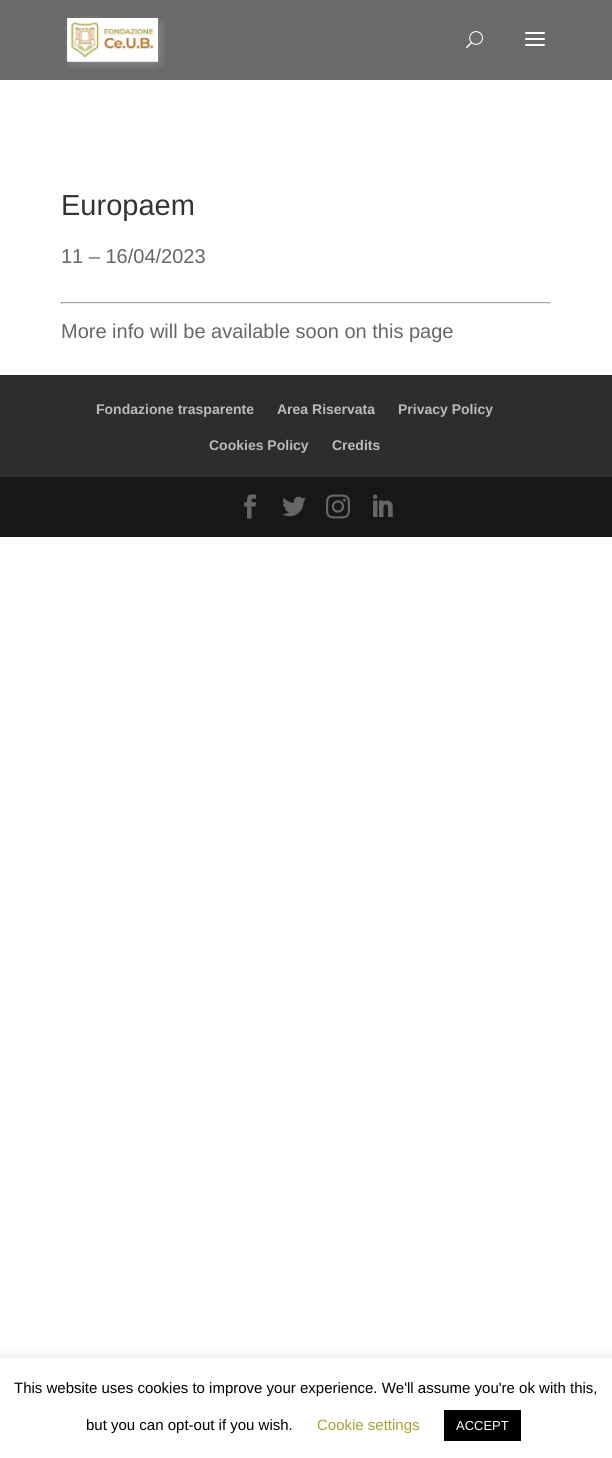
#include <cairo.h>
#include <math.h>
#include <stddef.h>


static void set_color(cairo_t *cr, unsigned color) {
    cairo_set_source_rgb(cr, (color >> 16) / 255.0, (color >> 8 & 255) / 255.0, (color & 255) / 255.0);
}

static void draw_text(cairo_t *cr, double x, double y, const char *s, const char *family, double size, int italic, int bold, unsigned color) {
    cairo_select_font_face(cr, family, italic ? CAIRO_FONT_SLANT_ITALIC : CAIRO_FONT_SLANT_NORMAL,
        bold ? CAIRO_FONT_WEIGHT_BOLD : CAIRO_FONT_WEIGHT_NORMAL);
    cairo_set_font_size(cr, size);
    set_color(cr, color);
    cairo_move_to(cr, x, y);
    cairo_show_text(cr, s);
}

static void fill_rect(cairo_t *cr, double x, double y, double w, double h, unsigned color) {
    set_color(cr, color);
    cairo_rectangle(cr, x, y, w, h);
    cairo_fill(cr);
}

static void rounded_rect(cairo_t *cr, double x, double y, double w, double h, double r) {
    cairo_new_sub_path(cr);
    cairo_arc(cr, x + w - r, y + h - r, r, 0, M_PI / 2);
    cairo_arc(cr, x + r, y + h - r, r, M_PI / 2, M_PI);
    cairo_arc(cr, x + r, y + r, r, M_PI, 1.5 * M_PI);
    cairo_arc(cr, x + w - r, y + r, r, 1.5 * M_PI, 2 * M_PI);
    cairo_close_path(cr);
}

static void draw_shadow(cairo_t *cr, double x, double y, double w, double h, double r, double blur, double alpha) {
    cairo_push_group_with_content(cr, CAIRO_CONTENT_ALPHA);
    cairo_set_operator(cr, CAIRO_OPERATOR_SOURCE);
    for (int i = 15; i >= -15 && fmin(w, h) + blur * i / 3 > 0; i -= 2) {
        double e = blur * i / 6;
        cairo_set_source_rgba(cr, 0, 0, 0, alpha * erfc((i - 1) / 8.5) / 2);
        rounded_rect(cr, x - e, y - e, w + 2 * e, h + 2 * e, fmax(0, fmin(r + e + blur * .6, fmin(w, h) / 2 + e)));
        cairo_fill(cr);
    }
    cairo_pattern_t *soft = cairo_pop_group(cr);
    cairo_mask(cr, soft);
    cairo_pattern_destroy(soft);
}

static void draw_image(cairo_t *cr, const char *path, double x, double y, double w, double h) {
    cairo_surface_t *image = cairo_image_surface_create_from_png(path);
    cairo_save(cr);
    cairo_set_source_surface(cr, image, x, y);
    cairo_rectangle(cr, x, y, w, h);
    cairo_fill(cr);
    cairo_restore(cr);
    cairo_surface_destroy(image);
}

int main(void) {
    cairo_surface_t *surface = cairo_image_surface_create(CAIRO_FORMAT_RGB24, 612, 1458);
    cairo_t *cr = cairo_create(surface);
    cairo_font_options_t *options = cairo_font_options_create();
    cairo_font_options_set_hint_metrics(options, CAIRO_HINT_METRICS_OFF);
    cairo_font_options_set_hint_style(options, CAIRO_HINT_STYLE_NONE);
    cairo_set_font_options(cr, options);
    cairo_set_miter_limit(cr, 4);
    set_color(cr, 0xFFFFFF);
    cairo_paint(cr);
    fill_rect(cr, 0, 0, 612, 80, 0x6A6A6A);
    draw_image(cr, "assets/img1.png", 65, 16, 101, 54);
    draw_image(cr, "assets/img2.png", 466, 31, 17, 18);
    draw_image(cr, "assets/img3.png", 525, 32, 20, 14);
    draw_text(cr, 61, 215, "Europaem", "Liberation Sans", 29, 0, 0, 0x333333);
    draw_text(cr, 61, 263, "11 – 16/04/2023", "Liberation Sans", 20, 0, 0, 0x666666);
    fill_rect(cr, 61, 302, 490, 1, 0x9F9F9F);
    fill_rect(cr, 550, 302, 1, 2, 0xEEEEEE);
    fill_rect(cr, 61, 303, 490, 1, 0xEEEEEE);
    fill_rect(cr, 61, 302, 1, 2, 0x9F9F9F);
    draw_text(cr, 61, 338, "More info will be available soon on this page", "Liberation Sans", 20, 0, 0, 0x666666);
    fill_rect(cr, 0, 375, 612, 102, 0x2D2D2D);
    draw_text(cr, 96, 414, "Fondazione trasparente", "Liberation Sans", 14, 0, 1, 0xBBBBBB);
    draw_text(cr, 277, 414, "Area Riservata", "Liberation Sans", 14, 0, 1, 0xBBBBBB);
    draw_text(cr, 398, 414, "Privacy Policy", "Liberation Sans", 14, 0, 1, 0xBBBBBB);
    draw_text(cr, 209, 450, "Cookies Policy", "Liberation Sans", 14, 0, 1, 0xBBBBBB);
    draw_text(cr, 332, 450, "Credits", "Liberation Sans", 14, 0, 1, 0xBBBBBB);
    fill_rect(cr, 0, 477, 612, 60, 0x171717);
    draw_image(cr, "assets/img4.png", 244, 494, 12, 25);
    draw_image(cr, "assets/img5.png", 282, 496, 24, 21);
    draw_image(cr, "assets/img6.png", 326, 494, 24, 25);
    draw_image(cr, "assets/img7.png", 373, 494, 20, 23);
    set_color(cr, 0xACABAB);
    draw_shadow(cr, 0, 1357, 612, 100, 0, 5, 0.3);
    fill_rect(cr, 0, 1358, 612, 100, 0xFFFFFF);
    draw_text(cr, 14, 1393, "This website uses cookies to improve your experience. We'll assume you're ok with this,", "Liberation Sans", 15, 0, 0, 0x000000);
    draw_text(cr, 86, 1430, "but you can opt-out if you wish.", "Liberation Sans", 15, 0, 0, 0x000000);
    draw_text(cr, 317, 1430, "Cookie settings", "Liberation Sans", 15, 0, 0, 0xA89F33);
    fill_rect(cr, 444, 1410, 77, 31, 0x000000);
    draw_text(cr, 456, 1430, "ACCEPT", "Liberation Sans", 13, 0, 0, 0xFFFFFF);
    cairo_surface_write_to_png(surface, "output.png");
    cairo_font_options_destroy(options);
    cairo_destroy(cr);
    cairo_surface_destroy(surface);
    return 0;
}
